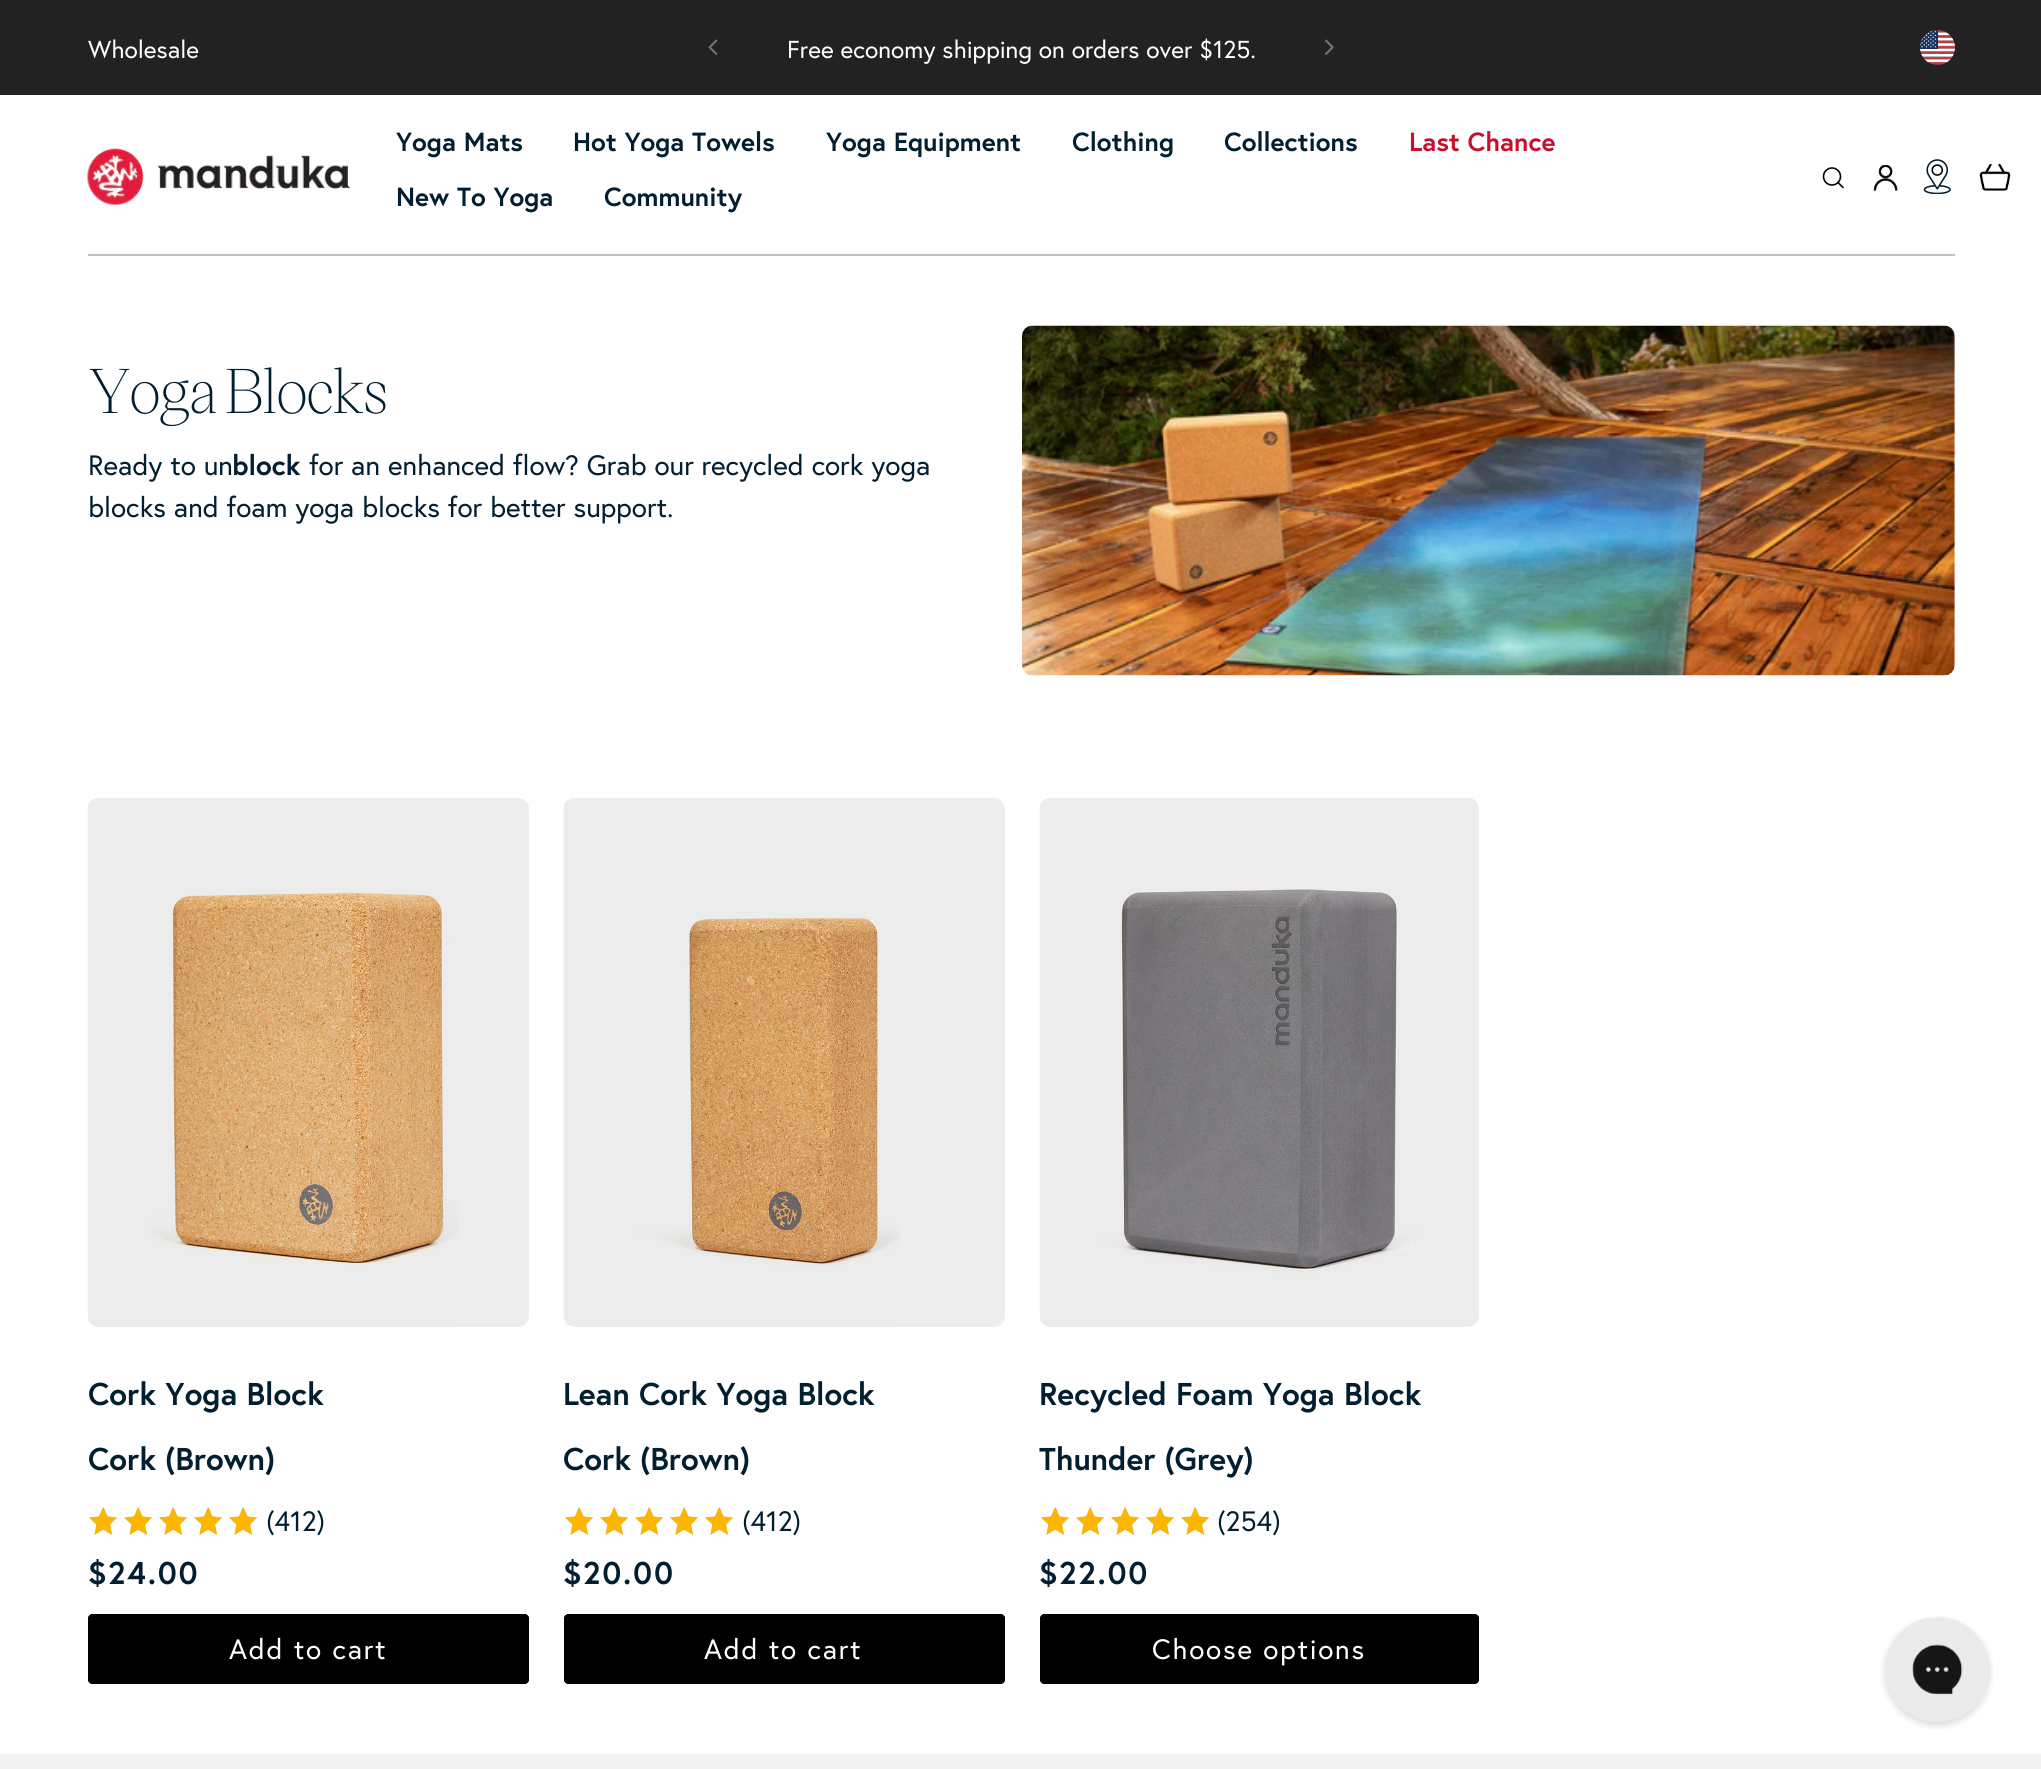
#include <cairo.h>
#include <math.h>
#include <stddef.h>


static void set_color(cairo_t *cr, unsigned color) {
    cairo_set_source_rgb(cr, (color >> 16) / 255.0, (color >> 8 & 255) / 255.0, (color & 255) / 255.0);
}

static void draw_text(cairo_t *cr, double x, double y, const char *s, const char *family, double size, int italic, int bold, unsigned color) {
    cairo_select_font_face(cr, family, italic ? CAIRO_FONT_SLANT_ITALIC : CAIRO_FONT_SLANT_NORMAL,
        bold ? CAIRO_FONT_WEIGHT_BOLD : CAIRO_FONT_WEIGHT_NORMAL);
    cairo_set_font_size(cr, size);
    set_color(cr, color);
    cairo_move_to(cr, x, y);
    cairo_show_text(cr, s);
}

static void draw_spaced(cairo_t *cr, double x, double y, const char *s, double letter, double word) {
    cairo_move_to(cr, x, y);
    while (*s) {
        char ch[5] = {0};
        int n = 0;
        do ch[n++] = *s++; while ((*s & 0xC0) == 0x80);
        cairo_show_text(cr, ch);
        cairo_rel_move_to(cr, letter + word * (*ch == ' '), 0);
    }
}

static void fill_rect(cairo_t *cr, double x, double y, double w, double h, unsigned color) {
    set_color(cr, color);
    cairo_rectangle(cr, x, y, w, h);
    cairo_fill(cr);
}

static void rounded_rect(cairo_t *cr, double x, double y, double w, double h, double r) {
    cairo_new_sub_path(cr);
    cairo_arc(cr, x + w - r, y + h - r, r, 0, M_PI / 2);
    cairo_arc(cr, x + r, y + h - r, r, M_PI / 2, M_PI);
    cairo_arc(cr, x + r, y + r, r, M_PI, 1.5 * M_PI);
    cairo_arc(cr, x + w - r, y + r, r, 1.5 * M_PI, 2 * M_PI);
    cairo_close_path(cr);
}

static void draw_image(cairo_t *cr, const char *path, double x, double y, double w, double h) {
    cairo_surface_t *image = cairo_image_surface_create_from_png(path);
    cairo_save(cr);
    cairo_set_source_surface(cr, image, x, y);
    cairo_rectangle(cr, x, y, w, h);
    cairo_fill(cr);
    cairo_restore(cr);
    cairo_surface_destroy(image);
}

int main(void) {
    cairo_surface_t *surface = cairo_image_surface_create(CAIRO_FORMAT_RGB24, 2041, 1769);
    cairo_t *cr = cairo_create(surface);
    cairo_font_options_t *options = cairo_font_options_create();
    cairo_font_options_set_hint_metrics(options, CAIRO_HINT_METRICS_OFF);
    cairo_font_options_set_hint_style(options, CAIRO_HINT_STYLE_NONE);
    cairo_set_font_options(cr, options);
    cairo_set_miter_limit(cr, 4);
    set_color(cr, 0xFFFFFF);
    cairo_paint(cr);
    fill_rect(cr, 0, 0, 2041, 95, 0x222222);
    draw_text(cr, 88, 58, "Wholesale", "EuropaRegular", 24.5, 0, 0, 0xFFFFFF);
    draw_image(cr, "assets/img1.png", 708, 39, 10, 16);
    draw_text(cr, 787, 58, "Free economy shipping on orders over $125.", "EuropaRegular", 24.5, 0, 0, 0xFFFFFF);
    draw_image(cr, "assets/img2.png", 1325, 39, 9, 16);
    draw_image(cr, "assets/img3.png", 1920, 30, 35, 35);
    fill_rect(cr, 88, 254, 1867, 2, 0xC0C0C0);
    draw_image(cr, "assets/img4.png", 87, 148, 263, 57);
    draw_text(cr, 396, 151, "Yoga Mats", "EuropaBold", 26.25, 0, 1, 0x011F31);
    draw_text(cr, 573, 151, "Hot Yoga Towels", "EuropaBold", 26.25, 0, 1, 0x011F31);
    draw_text(cr, 826, 151, "Yoga Equipment", "EuropaBold", 26.25, 0, 1, 0x011F31);
    draw_text(cr, 1072, 151, "Clothing", "EuropaBold", 26.25, 0, 1, 0x011F31);
    draw_text(cr, 1224, 151, "Collections", "EuropaBold", 26.25, 0, 1, 0x011F31);
    draw_text(cr, 1409, 151, "Last Chance", "EuropaBold", 26.25, 0, 1, 0xC8102E);
    draw_text(cr, 396, 206, "New To Yoga", "EuropaBold", 26.25, 0, 1, 0x011F31);
    draw_text(cr, 604, 206, "Community", "EuropaBold", 26.25, 0, 1, 0x011F31);
    cairo_new_path(cr);
    cairo_arc(cr, 1832, 176.5, 8.5, 0, 2 * M_PI);
    set_color(cr, 0x000000);
    cairo_set_line_width(cr, 1.6);
    cairo_stroke(cr);
    cairo_new_path(cr);
    cairo_move_to(cr, 1838, 182.5);
    cairo_line_to(cr, 1843, 187.5);
    cairo_set_line_cap(cr, CAIRO_LINE_CAP_ROUND);
    cairo_set_line_join(cr, CAIRO_LINE_JOIN_ROUND);
    cairo_stroke(cr);
    draw_image(cr, "assets/img5.png", 1873, 165, 25, 26);
    draw_image(cr, "assets/img6.png", 1923, 159, 28, 35);
    draw_image(cr, "assets/img7.png", 1979, 163, 32, 28);
    cairo_select_font_face(cr, "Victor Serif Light", CAIRO_FONT_SLANT_NORMAL, CAIRO_FONT_WEIGHT_NORMAL);
    cairo_set_font_size(cr, 61.25);
    set_color(cr, 0x011F31);
    draw_spaced(cr, 88, 413, "Yoga Blocks", -1.75, 0);
    draw_text(cr, 88, 475, "Ready to un", "EuropaRegular", 28, 0, 0, 0x011F31);
    draw_text(cr, 232, 475, "block", "EuropaBold", 28, 0, 1, 0x011F31);
    draw_text(cr, 309, 475, "for an enhanced flow? Grab our recycled cork yoga", "EuropaRegular", 28, 0, 0, 0x011F31);
    draw_text(cr, 88, 517, "blocks and foam yoga blocks for better support.", "EuropaRegular", 28, 0, 0, 0x011F31);
    draw_image(cr, "assets/img8.png", 1022, 325, 933, 351);
    set_color(cr, 0xEDEDED);
    rounded_rect(cr, 88, 798, 441, 529, 11);
    cairo_fill(cr);
    draw_image(cr, "assets/img9.png", 87, 798, 372, 528);
    draw_text(cr, 88, 1405, "Cork Yoga Block", "EuropaBold", 31.5, 0, 1, 0x011F31);
    draw_text(cr, 88, 1470, "Cork (Brown)", "EuropaBold", 31.5, 0, 1, 0x011F31);
    set_color(cr, 0xC1C4C9);
    cairo_new_path(cr);
    cairo_move_to(cr, 103.5, 1507);
    cairo_line_to(cr, 107.5, 1516.5);
    cairo_line_to(cr, 117, 1517.5);
    cairo_line_to(cr, 110, 1524.5);
    cairo_line_to(cr, 112, 1534.5);
    cairo_line_to(cr, 103.5, 1529.5);
    cairo_line_to(cr, 94.5, 1534.5);
    cairo_line_to(cr, 96.5, 1524.5);
    cairo_line_to(cr, 89.5, 1517.5);
    cairo_line_to(cr, 99, 1516.5);
    cairo_close_path(cr);
    cairo_move_to(cr, 138.5, 1507);
    cairo_line_to(cr, 142.5, 1516.5);
    cairo_line_to(cr, 152, 1517.5);
    cairo_line_to(cr, 145, 1524.5);
    cairo_line_to(cr, 147, 1534.5);
    cairo_line_to(cr, 138.5, 1529.5);
    cairo_line_to(cr, 129.5, 1534.5);
    cairo_line_to(cr, 131.5, 1524.5);
    cairo_line_to(cr, 124.5, 1517.5);
    cairo_line_to(cr, 134, 1516.5);
    cairo_close_path(cr);
    cairo_fill(cr);
    cairo_new_path(cr);
    cairo_move_to(cr, 173.5, 1507);
    cairo_line_to(cr, 177.5, 1516.5);
    cairo_line_to(cr, 187, 1517.5);
    cairo_line_to(cr, 180, 1524.5);
    cairo_line_to(cr, 182, 1534.5);
    cairo_line_to(cr, 173.5, 1529.5);
    cairo_line_to(cr, 164.5, 1534.5);
    cairo_line_to(cr, 166.5, 1524.5);
    cairo_line_to(cr, 159.5, 1517.5);
    cairo_line_to(cr, 169, 1516.5);
    cairo_close_path(cr);
    cairo_move_to(cr, 208.5, 1507);
    cairo_line_to(cr, 212.5, 1516.5);
    cairo_line_to(cr, 222, 1517.5);
    cairo_line_to(cr, 215, 1524.5);
    cairo_line_to(cr, 217, 1534.5);
    cairo_line_to(cr, 208.5, 1529.5);
    cairo_line_to(cr, 199.5, 1534.5);
    cairo_line_to(cr, 201.5, 1524.5);
    cairo_line_to(cr, 194.5, 1517.5);
    cairo_line_to(cr, 204, 1516.5);
    cairo_close_path(cr);
    cairo_fill(cr);
    cairo_new_path(cr);
    cairo_move_to(cr, 243.5, 1507);
    cairo_line_to(cr, 247.5, 1516.5);
    cairo_line_to(cr, 257, 1517.5);
    cairo_line_to(cr, 250, 1524.5);
    cairo_line_to(cr, 252, 1534.5);
    cairo_line_to(cr, 243.5, 1529.5);
    cairo_line_to(cr, 234.5, 1534.5);
    cairo_line_to(cr, 236.5, 1524.5);
    cairo_line_to(cr, 229.5, 1517.5);
    cairo_line_to(cr, 239, 1516.5);
    cairo_close_path(cr);
    cairo_fill(cr);
    set_color(cr, 0xFDB600);
    cairo_new_path(cr);
    cairo_move_to(cr, 103, 1507);
    cairo_line_to(cr, 107.5, 1516.5);
    cairo_line_to(cr, 117, 1517.5);
    cairo_line_to(cr, 110, 1524.5);
    cairo_line_to(cr, 112, 1535);
    cairo_line_to(cr, 103, 1529.5);
    cairo_line_to(cr, 94.5, 1535);
    cairo_line_to(cr, 96.5, 1524.5);
    cairo_line_to(cr, 89, 1517.5);
    cairo_line_to(cr, 99, 1516.5);
    cairo_close_path(cr);
    cairo_move_to(cr, 138, 1507);
    cairo_line_to(cr, 142.5, 1516.5);
    cairo_line_to(cr, 152, 1517.5);
    cairo_line_to(cr, 145, 1524.5);
    cairo_line_to(cr, 147, 1535);
    cairo_line_to(cr, 138, 1529.5);
    cairo_line_to(cr, 129.5, 1535);
    cairo_line_to(cr, 131.5, 1524.5);
    cairo_line_to(cr, 124, 1517.5);
    cairo_line_to(cr, 134, 1516.5);
    cairo_close_path(cr);
    cairo_fill(cr);
    cairo_new_path(cr);
    cairo_move_to(cr, 173, 1507);
    cairo_line_to(cr, 177.5, 1516.5);
    cairo_line_to(cr, 187, 1517.5);
    cairo_line_to(cr, 180, 1524.5);
    cairo_line_to(cr, 182, 1535);
    cairo_line_to(cr, 173, 1529.5);
    cairo_line_to(cr, 164.5, 1535);
    cairo_line_to(cr, 166.5, 1524.5);
    cairo_line_to(cr, 159, 1517.5);
    cairo_line_to(cr, 169, 1516.5);
    cairo_close_path(cr);
    cairo_move_to(cr, 208, 1507);
    cairo_line_to(cr, 212.5, 1516.5);
    cairo_line_to(cr, 222, 1517.5);
    cairo_line_to(cr, 215, 1524.5);
    cairo_line_to(cr, 217, 1535);
    cairo_line_to(cr, 208, 1529.5);
    cairo_line_to(cr, 199.5, 1535);
    cairo_line_to(cr, 201.5, 1524.5);
    cairo_line_to(cr, 194, 1517.5);
    cairo_line_to(cr, 204, 1516.5);
    cairo_close_path(cr);
    cairo_fill(cr);
    cairo_new_path(cr);
    cairo_move_to(cr, 243, 1507);
    cairo_line_to(cr, 247.5, 1516.5);
    cairo_line_to(cr, 257, 1517.5);
    cairo_line_to(cr, 250, 1524.5);
    cairo_line_to(cr, 252, 1535);
    cairo_line_to(cr, 243, 1529.5);
    cairo_line_to(cr, 234.5, 1535);
    cairo_line_to(cr, 236.5, 1524.5);
    cairo_line_to(cr, 229, 1517.5);
    cairo_line_to(cr, 239, 1516.5);
    cairo_close_path(cr);
    cairo_fill(cr);
    draw_text(cr, 266, 1531, "(412)", "EuropaRegular", 28, 0, 0, 0x011F31);
    cairo_select_font_face(cr, "EuropaBold", CAIRO_FONT_SLANT_NORMAL, CAIRO_FONT_WEIGHT_BOLD);
    cairo_set_font_size(cr, 31.5);
    draw_spaced(cr, 88, 1584, "$24.00", 1.75, 0);
    set_color(cr, 0x000000);
    rounded_rect(cr, 88, 1614, 441, 70, 5);
    cairo_fill(cr);
    rounded_rect(cr, 89, 1615, 439, 68, 4);
    cairo_set_line_width(cr, 2);
    cairo_set_line_cap(cr, CAIRO_LINE_CAP_BUTT);
    cairo_set_line_join(cr, CAIRO_LINE_JOIN_MITER);
    cairo_stroke(cr);
    rounded_rect(cr, 89, 1615, 439, 68, 4);
    cairo_stroke(cr);
    cairo_select_font_face(cr, "EuropaRegular", CAIRO_FONT_SLANT_NORMAL, CAIRO_FONT_WEIGHT_NORMAL);
    cairo_set_font_size(cr, 28);
    set_color(cr, 0xFFFFFF);
    draw_spaced(cr, 229, 1659, "Add to cart", 1.75, 0);
    set_color(cr, 0xEDEDED);
    rounded_rect(cr, 564, 798, 441, 529, 11);
    cairo_fill(cr);
    draw_image(cr, "assets/img10.png", 563, 798, 337, 528);
    draw_text(cr, 563, 1405, "Lean Cork Yoga Block", "EuropaBold", 31.5, 0, 1, 0x011F31);
    draw_text(cr, 563, 1470, "Cork (Brown)", "EuropaBold", 31.5, 0, 1, 0x011F31);
    set_color(cr, 0xC1C4C9);
    cairo_new_path(cr);
    cairo_move_to(cr, 579.5, 1507);
    cairo_line_to(cr, 583.5, 1516.5);
    cairo_line_to(cr, 593, 1517.5);
    cairo_line_to(cr, 586, 1524.5);
    cairo_line_to(cr, 588, 1534.5);
    cairo_line_to(cr, 579.5, 1529.5);
    cairo_line_to(cr, 570.5, 1534.5);
    cairo_line_to(cr, 572.5, 1524.5);
    cairo_line_to(cr, 565.5, 1517.5);
    cairo_line_to(cr, 575, 1516.5);
    cairo_close_path(cr);
    cairo_move_to(cr, 614.5, 1507);
    cairo_line_to(cr, 618.5, 1516.5);
    cairo_line_to(cr, 628, 1517.5);
    cairo_line_to(cr, 621, 1524.5);
    cairo_line_to(cr, 623, 1534.5);
    cairo_line_to(cr, 614.5, 1529.5);
    cairo_line_to(cr, 605.5, 1534.5);
    cairo_line_to(cr, 607.5, 1524.5);
    cairo_line_to(cr, 600.5, 1517.5);
    cairo_line_to(cr, 610, 1516.5);
    cairo_close_path(cr);
    cairo_fill(cr);
    cairo_new_path(cr);
    cairo_move_to(cr, 649.5, 1507);
    cairo_line_to(cr, 653.5, 1516.5);
    cairo_line_to(cr, 663, 1517.5);
    cairo_line_to(cr, 656, 1524.5);
    cairo_line_to(cr, 658, 1534.5);
    cairo_line_to(cr, 649.5, 1529.5);
    cairo_line_to(cr, 640.5, 1534.5);
    cairo_line_to(cr, 642.5, 1524.5);
    cairo_line_to(cr, 635.5, 1517.5);
    cairo_line_to(cr, 645, 1516.5);
    cairo_close_path(cr);
    cairo_move_to(cr, 684.5, 1507);
    cairo_line_to(cr, 688.5, 1516.5);
    cairo_line_to(cr, 698, 1517.5);
    cairo_line_to(cr, 691, 1524.5);
    cairo_line_to(cr, 693, 1534.5);
    cairo_line_to(cr, 684.5, 1529.5);
    cairo_line_to(cr, 675.5, 1534.5);
    cairo_line_to(cr, 677.5, 1524.5);
    cairo_line_to(cr, 670.5, 1517.5);
    cairo_line_to(cr, 680, 1516.5);
    cairo_close_path(cr);
    cairo_fill(cr);
    cairo_new_path(cr);
    cairo_move_to(cr, 719.5, 1507);
    cairo_line_to(cr, 723.5, 1516.5);
    cairo_line_to(cr, 733, 1517.5);
    cairo_line_to(cr, 726, 1524.5);
    cairo_line_to(cr, 728, 1534.5);
    cairo_line_to(cr, 719.5, 1529.5);
    cairo_line_to(cr, 710.5, 1534.5);
    cairo_line_to(cr, 712.5, 1524.5);
    cairo_line_to(cr, 705.5, 1517.5);
    cairo_line_to(cr, 715, 1516.5);
    cairo_close_path(cr);
    cairo_fill(cr);
    set_color(cr, 0xFDB600);
    cairo_new_path(cr);
    cairo_move_to(cr, 579, 1507);
    cairo_line_to(cr, 583.5, 1516.5);
    cairo_line_to(cr, 593, 1517.5);
    cairo_line_to(cr, 586, 1524.5);
    cairo_line_to(cr, 588, 1535);
    cairo_line_to(cr, 579, 1529.5);
    cairo_line_to(cr, 570.5, 1535);
    cairo_line_to(cr, 572.5, 1524.5);
    cairo_line_to(cr, 565, 1517.5);
    cairo_line_to(cr, 575, 1516.5);
    cairo_close_path(cr);
    cairo_move_to(cr, 614, 1507);
    cairo_line_to(cr, 618.5, 1516.5);
    cairo_line_to(cr, 628, 1517.5);
    cairo_line_to(cr, 621, 1524.5);
    cairo_line_to(cr, 623, 1535);
    cairo_line_to(cr, 614, 1529.5);
    cairo_line_to(cr, 605.5, 1535);
    cairo_line_to(cr, 607.5, 1524.5);
    cairo_line_to(cr, 600, 1517.5);
    cairo_line_to(cr, 610, 1516.5);
    cairo_close_path(cr);
    cairo_fill(cr);
    cairo_new_path(cr);
    cairo_move_to(cr, 649, 1507);
    cairo_line_to(cr, 653.5, 1516.5);
    cairo_line_to(cr, 663, 1517.5);
    cairo_line_to(cr, 656, 1524.5);
    cairo_line_to(cr, 658, 1535);
    cairo_line_to(cr, 649, 1529.5);
    cairo_line_to(cr, 640.5, 1535);
    cairo_line_to(cr, 642.5, 1524.5);
    cairo_line_to(cr, 635, 1517.5);
    cairo_line_to(cr, 645, 1516.5);
    cairo_close_path(cr);
    cairo_move_to(cr, 684, 1507);
    cairo_line_to(cr, 688.5, 1516.5);
    cairo_line_to(cr, 698, 1517.5);
    cairo_line_to(cr, 691, 1524.5);
    cairo_line_to(cr, 693, 1535);
    cairo_line_to(cr, 684, 1529.5);
    cairo_line_to(cr, 675.5, 1535);
    cairo_line_to(cr, 677.5, 1524.5);
    cairo_line_to(cr, 670, 1517.5);
    cairo_line_to(cr, 680, 1516.5);
    cairo_close_path(cr);
    cairo_fill(cr);
    cairo_new_path(cr);
    cairo_move_to(cr, 719, 1507);
    cairo_line_to(cr, 723.5, 1516.5);
    cairo_line_to(cr, 733, 1517.5);
    cairo_line_to(cr, 726, 1524.5);
    cairo_line_to(cr, 728, 1535);
    cairo_line_to(cr, 719, 1529.5);
    cairo_line_to(cr, 710.5, 1535);
    cairo_line_to(cr, 712.5, 1524.5);
    cairo_line_to(cr, 705, 1517.5);
    cairo_line_to(cr, 715, 1516.5);
    cairo_close_path(cr);
    cairo_fill(cr);
    draw_text(cr, 742, 1531, "(412)", "EuropaRegular", 28, 0, 0, 0x011F31);
    cairo_select_font_face(cr, "EuropaBold", CAIRO_FONT_SLANT_NORMAL, CAIRO_FONT_WEIGHT_BOLD);
    cairo_set_font_size(cr, 31.5);
    draw_spaced(cr, 563, 1584, "$20.00", 1.75, 0);
    set_color(cr, 0x000000);
    rounded_rect(cr, 564, 1614, 441, 70, 5);
    cairo_fill(cr);
    rounded_rect(cr, 565, 1615, 439, 68, 4);
    cairo_stroke(cr);
    rounded_rect(cr, 565, 1615, 439, 68, 4);
    cairo_stroke(cr);
    cairo_select_font_face(cr, "EuropaRegular", CAIRO_FONT_SLANT_NORMAL, CAIRO_FONT_WEIGHT_NORMAL);
    cairo_set_font_size(cr, 28);
    set_color(cr, 0xFFFFFF);
    draw_spaced(cr, 704, 1659, "Add to cart", 1.75, 0);
    set_color(cr, 0xEDEDED);
    rounded_rect(cr, 1040, 798, 439, 529, 11);
    cairo_fill(cr);
    draw_image(cr, "assets/img11.png", 1039, 798, 435, 528);
    draw_text(cr, 1039, 1405, "Recycled Foam Yoga Block", "EuropaBold", 31.5, 0, 1, 0x011F31);
    draw_text(cr, 1039, 1470, "Thunder (Grey)", "EuropaBold", 31.5, 0, 1, 0x011F31);
    set_color(cr, 0xC1C4C9);
    cairo_new_path(cr);
    cairo_move_to(cr, 1055.5, 1507);
    cairo_line_to(cr, 1059.5, 1516.5);
    cairo_line_to(cr, 1069, 1517.5);
    cairo_line_to(cr, 1062, 1524.5);
    cairo_line_to(cr, 1064, 1534.5);
    cairo_line_to(cr, 1055.5, 1529.5);
    cairo_line_to(cr, 1046.5, 1534.5);
    cairo_line_to(cr, 1048.5, 1524.5);
    cairo_line_to(cr, 1041.5, 1517.5);
    cairo_line_to(cr, 1051, 1516.5);
    cairo_close_path(cr);
    cairo_move_to(cr, 1090.5, 1507);
    cairo_line_to(cr, 1094.5, 1516.5);
    cairo_line_to(cr, 1104, 1517.5);
    cairo_line_to(cr, 1097, 1524.5);
    cairo_line_to(cr, 1099, 1534.5);
    cairo_line_to(cr, 1090.5, 1529.5);
    cairo_line_to(cr, 1081.5, 1534.5);
    cairo_line_to(cr, 1083.5, 1524.5);
    cairo_line_to(cr, 1076.5, 1517.5);
    cairo_line_to(cr, 1086, 1516.5);
    cairo_close_path(cr);
    cairo_fill(cr);
    cairo_new_path(cr);
    cairo_move_to(cr, 1125.5, 1507);
    cairo_line_to(cr, 1129.5, 1516.5);
    cairo_line_to(cr, 1139, 1517.5);
    cairo_line_to(cr, 1132, 1524.5);
    cairo_line_to(cr, 1134, 1534.5);
    cairo_line_to(cr, 1125.5, 1529.5);
    cairo_line_to(cr, 1116.5, 1534.5);
    cairo_line_to(cr, 1118.5, 1524.5);
    cairo_line_to(cr, 1111.5, 1517.5);
    cairo_line_to(cr, 1121, 1516.5);
    cairo_close_path(cr);
    cairo_move_to(cr, 1160.5, 1507);
    cairo_line_to(cr, 1164.5, 1516.5);
    cairo_line_to(cr, 1174, 1517.5);
    cairo_line_to(cr, 1167, 1524.5);
    cairo_line_to(cr, 1169, 1534.5);
    cairo_line_to(cr, 1160.5, 1529.5);
    cairo_line_to(cr, 1151.5, 1534.5);
    cairo_line_to(cr, 1153.5, 1524.5);
    cairo_line_to(cr, 1146.5, 1517.5);
    cairo_line_to(cr, 1156, 1516.5);
    cairo_close_path(cr);
    cairo_fill(cr);
    cairo_new_path(cr);
    cairo_move_to(cr, 1195.5, 1507);
    cairo_line_to(cr, 1199.5, 1516.5);
    cairo_line_to(cr, 1209, 1517.5);
    cairo_line_to(cr, 1202, 1524.5);
    cairo_line_to(cr, 1204, 1534.5);
    cairo_line_to(cr, 1195.5, 1529.5);
    cairo_line_to(cr, 1186.5, 1534.5);
    cairo_line_to(cr, 1188.5, 1524.5);
    cairo_line_to(cr, 1181.5, 1517.5);
    cairo_line_to(cr, 1191, 1516.5);
    cairo_close_path(cr);
    cairo_fill(cr);
    set_color(cr, 0xFDB600);
    cairo_new_path(cr);
    cairo_move_to(cr, 1055, 1507);
    cairo_line_to(cr, 1059.5, 1516.5);
    cairo_line_to(cr, 1069, 1517.5);
    cairo_line_to(cr, 1062, 1524.5);
    cairo_line_to(cr, 1064, 1535);
    cairo_line_to(cr, 1055, 1529.5);
    cairo_line_to(cr, 1046.5, 1535);
    cairo_line_to(cr, 1048.5, 1524.5);
    cairo_line_to(cr, 1041, 1517.5);
    cairo_line_to(cr, 1051, 1516.5);
    cairo_close_path(cr);
    cairo_move_to(cr, 1090, 1507);
    cairo_line_to(cr, 1094.5, 1516.5);
    cairo_line_to(cr, 1104, 1517.5);
    cairo_line_to(cr, 1097, 1524.5);
    cairo_line_to(cr, 1099, 1535);
    cairo_line_to(cr, 1090, 1529.5);
    cairo_line_to(cr, 1081.5, 1535);
    cairo_line_to(cr, 1083.5, 1524.5);
    cairo_line_to(cr, 1076, 1517.5);
    cairo_line_to(cr, 1086, 1516.5);
    cairo_close_path(cr);
    cairo_fill(cr);
    cairo_new_path(cr);
    cairo_move_to(cr, 1125, 1507);
    cairo_line_to(cr, 1129.5, 1516.5);
    cairo_line_to(cr, 1139, 1517.5);
    cairo_line_to(cr, 1132, 1524.5);
    cairo_line_to(cr, 1134, 1535);
    cairo_line_to(cr, 1125, 1529.5);
    cairo_line_to(cr, 1116.5, 1535);
    cairo_line_to(cr, 1118.5, 1524.5);
    cairo_line_to(cr, 1111, 1517.5);
    cairo_line_to(cr, 1121, 1516.5);
    cairo_close_path(cr);
    cairo_move_to(cr, 1160, 1507);
    cairo_line_to(cr, 1164.5, 1516.5);
    cairo_line_to(cr, 1174, 1517.5);
    cairo_line_to(cr, 1167, 1524.5);
    cairo_line_to(cr, 1169, 1535);
    cairo_line_to(cr, 1160, 1529.5);
    cairo_line_to(cr, 1151.5, 1535);
    cairo_line_to(cr, 1153.5, 1524.5);
    cairo_line_to(cr, 1146, 1517.5);
    cairo_line_to(cr, 1156, 1516.5);
    cairo_close_path(cr);
    cairo_fill(cr);
    cairo_new_path(cr);
    cairo_move_to(cr, 1195, 1507);
    cairo_line_to(cr, 1199.5, 1516.5);
    cairo_line_to(cr, 1209, 1517.5);
    cairo_line_to(cr, 1202, 1524.5);
    cairo_line_to(cr, 1204, 1535);
    cairo_line_to(cr, 1195, 1529.5);
    cairo_line_to(cr, 1186.5, 1535);
    cairo_line_to(cr, 1188.5, 1524.5);
    cairo_line_to(cr, 1181, 1517.5);
    cairo_line_to(cr, 1191, 1516.5);
    cairo_close_path(cr);
    cairo_fill(cr);
    draw_text(cr, 1217, 1531, "(254)", "EuropaRegular", 28, 0, 0, 0x011F31);
    cairo_select_font_face(cr, "EuropaBold", CAIRO_FONT_SLANT_NORMAL, CAIRO_FONT_WEIGHT_BOLD);
    cairo_set_font_size(cr, 31.5);
    draw_spaced(cr, 1039, 1584, "$22.00", 1.75, 0);
    set_color(cr, 0x000000);
    rounded_rect(cr, 1040, 1614, 439, 70, 5);
    cairo_fill(cr);
    rounded_rect(cr, 1041, 1615, 437, 68, 4);
    cairo_stroke(cr);
    rounded_rect(cr, 1041, 1615, 437, 68, 4);
    cairo_stroke(cr);
    cairo_select_font_face(cr, "EuropaRegular", CAIRO_FONT_SLANT_NORMAL, CAIRO_FONT_WEIGHT_NORMAL);
    cairo_set_font_size(cr, 28);
    set_color(cr, 0xFFFFFF);
    draw_spaced(cr, 1152, 1659, "Choose options", 1.75, 0);
    fill_rect(cr, 0, 1754, 2041, 15, 0xF3F3F3);
    draw_image(cr, "assets/img12.png", 1881, 1616, 112, 113);
    cairo_surface_write_to_png(surface, "output.png");
    cairo_font_options_destroy(options);
    cairo_destroy(cr);
    cairo_surface_destroy(surface);
    return 0;
}
